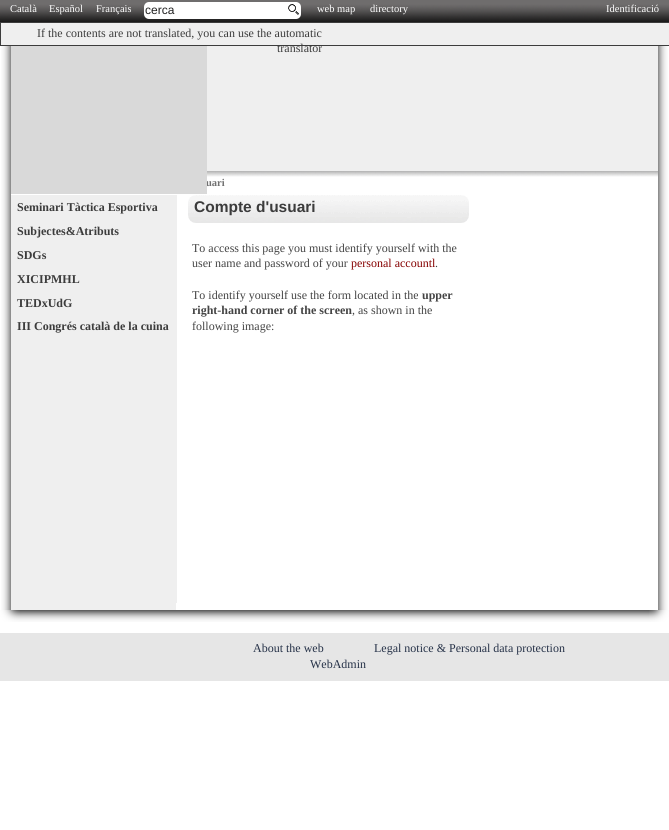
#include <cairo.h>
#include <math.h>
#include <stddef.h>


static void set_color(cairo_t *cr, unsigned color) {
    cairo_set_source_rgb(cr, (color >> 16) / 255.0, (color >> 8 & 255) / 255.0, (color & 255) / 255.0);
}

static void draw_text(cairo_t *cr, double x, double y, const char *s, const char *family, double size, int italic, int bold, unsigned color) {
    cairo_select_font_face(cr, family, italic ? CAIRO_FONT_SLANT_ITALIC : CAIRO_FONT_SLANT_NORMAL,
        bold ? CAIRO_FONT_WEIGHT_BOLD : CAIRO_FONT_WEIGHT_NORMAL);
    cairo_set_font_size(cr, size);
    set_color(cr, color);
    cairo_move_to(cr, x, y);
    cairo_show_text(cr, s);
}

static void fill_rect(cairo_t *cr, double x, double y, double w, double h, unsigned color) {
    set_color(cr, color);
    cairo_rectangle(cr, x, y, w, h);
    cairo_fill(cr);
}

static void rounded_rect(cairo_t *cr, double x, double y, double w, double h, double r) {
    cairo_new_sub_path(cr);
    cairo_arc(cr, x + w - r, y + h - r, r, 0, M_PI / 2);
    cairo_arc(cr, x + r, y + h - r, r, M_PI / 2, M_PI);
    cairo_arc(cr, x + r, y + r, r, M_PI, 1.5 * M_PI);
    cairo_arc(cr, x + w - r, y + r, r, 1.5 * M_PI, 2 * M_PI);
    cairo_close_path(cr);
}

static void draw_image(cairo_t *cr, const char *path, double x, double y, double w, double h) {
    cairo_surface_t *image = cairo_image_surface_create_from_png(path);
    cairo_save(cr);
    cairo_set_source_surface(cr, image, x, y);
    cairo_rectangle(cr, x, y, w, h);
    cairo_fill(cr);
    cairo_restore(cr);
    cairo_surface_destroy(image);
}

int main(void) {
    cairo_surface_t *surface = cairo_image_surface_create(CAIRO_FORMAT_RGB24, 669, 830);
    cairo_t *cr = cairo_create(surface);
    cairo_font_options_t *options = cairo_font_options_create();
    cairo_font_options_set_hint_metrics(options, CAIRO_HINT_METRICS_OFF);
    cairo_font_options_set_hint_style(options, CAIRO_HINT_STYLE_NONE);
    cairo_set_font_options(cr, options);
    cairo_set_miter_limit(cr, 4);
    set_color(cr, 0xFFFFFF);
    cairo_paint(cr);
    draw_image(cr, "assets/img1.png", 0, 0, 669, 22);
    draw_text(cr, 10, 12, "Català", "Liberation Serif", 10.5, 0, 0, 0xFFFFFF);
    draw_text(cr, 49, 12, "Español", "Liberation Serif", 10.5, 0, 0, 0xFFFFFF);
    draw_text(cr, 96, 12, "Français", "Liberation Serif", 10.5, 0, 0, 0xFFFFFF);
    rounded_rect(cr, 144, 2, 157, 17, 5);
    cairo_fill(cr);
    draw_image(cr, "assets/img2.png", 288, 4, 11, 11);
    draw_text(cr, 145, 14, "cerca", "Liberation Sans", 12, 0, 0, 0x222222);
    draw_text(cr, 317, 12, "web map", "Liberation Serif", 10.5, 0, 0, 0xFFFFFF);
    draw_text(cr, 370, 12, "directory", "Liberation Serif", 10.5, 0, 0, 0xFFFFFF);
    draw_text(cr, 606, 12, "Identificació", "Liberation Serif", 10.5, 0, 0, 0xFFFFFF);
    set_color(cr, 0xEFEFEF);
    cairo_rectangle(cr, 0.5, 22.5, 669, 23);
    cairo_fill_preserve(cr);
    set_color(cr, 0x3C3C3C);
    cairo_set_line_width(cr, 1);
    cairo_stroke(cr);
    draw_text(cr, 37, 37, "If the contents are not translated, you can use the automatic", "Liberation Serif", 12, 0, 0, 0x3C3C3C);
    fill_rect(cr, 207, 46, 451, 125, 0xEFEFEF);
    draw_text(cr, 277, 52, "translator", "Liberation Serif", 12, 0, 0, 0x3C3C3C);
    draw_image(cr, "assets/img3.png", 20, 610, 629, 12);
    draw_image(cr, "assets/img4.png", 0, 610, 20, 12);
    draw_image(cr, "assets/img5.png", 649, 610, 20, 12);
    draw_image(cr, "assets/img6.png", 1, 46, 10, 564);
    draw_image(cr, "assets/img7.png", 658, 46, 10, 564);
    draw_text(cr, 206, 186, "uari", "Liberation Serif", 10.5, 0, 1, 0x717171);
    fill_rect(cr, 11, 46, 196, 148, 0xD9D9D9);
    draw_image(cr, "assets/img8.png", 207, 171, 451, 6);
    fill_rect(cr, 11, 195, 165, 415, 0xEFEFEF);
    fill_rect(cr, 176, 195, 1, 408, 0xEFEFEF);
    draw_text(cr, 17, 211, "Seminari Tàctica Esportiva", "Liberation Serif", 12, 0, 1, 0x3C3C3C);
    draw_text(cr, 17, 235, "Subjectes&Atributs", "Liberation Serif", 12, 0, 1, 0x3C3C3C);
    draw_text(cr, 17, 259, "SDGs", "Liberation Serif", 12, 0, 1, 0x3C3C3C);
    draw_text(cr, 17, 283, "XICIPMHL", "Liberation Serif", 12, 0, 1, 0x3C3C3C);
    draw_text(cr, 17, 307, "TEDxUdG", "Liberation Serif", 12, 0, 1, 0x3C3C3C);
    draw_text(cr, 17, 330, "III Congrés català de la cuina", "Liberation Serif", 12, 0, 1, 0x3C3C3C);
    draw_image(cr, "assets/img9.png", 188, 195, 281, 28);
    draw_text(cr, 194, 212, "Compte d'usuari", "Liberation Sans", 15.5, 0, 1, 0x3C3C3C);
    draw_text(cr, 192, 252, "To access this page you must identify yourself with the", "Liberation Serif", 12, 0, 0, 0x444444);
    draw_text(cr, 192, 267, "user name and password of your", "Liberation Serif", 12, 0, 0, 0x444444);
    draw_text(cr, 351, 267, "personal accountl", "Liberation Serif", 12, 0, 0, 0x840000);
    draw_text(cr, 435, 267, ".", "Liberation Serif", 12, 0, 0, 0x444444);
    draw_text(cr, 192, 299, "To identify yourself use the form located in the", "Liberation Serif", 12, 0, 0, 0x444444);
    draw_text(cr, 422, 299, "upper", "Liberation Serif", 12, 0, 1, 0x444444);
    draw_text(cr, 192, 314, "right-hand corner of the screen", "Liberation Serif", 12, 0, 1, 0x444444);
    draw_text(cr, 352, 314, ", as shown in the", "Liberation Serif", 12, 0, 0, 0x444444);
    draw_text(cr, 192, 330, "following image:", "Liberation Serif", 12, 0, 0, 0x444444);
    fill_rect(cr, 0, 633, 669, 48, 0xE6E6E6);
    draw_text(cr, 253, 652, "About the web", "Liberation Serif", 12, 0, 0, 0x263248);
    draw_text(cr, 374, 652, "Legal notice & Personal data protection", "Liberation Serif", 12, 0, 0, 0x263248);
    draw_text(cr, 310, 668, "WebAdmin", "Liberation Serif", 12, 0, 0, 0x263248);
    cairo_surface_write_to_png(surface, "output.png");
    cairo_font_options_destroy(options);
    cairo_destroy(cr);
    cairo_surface_destroy(surface);
    return 0;
}
